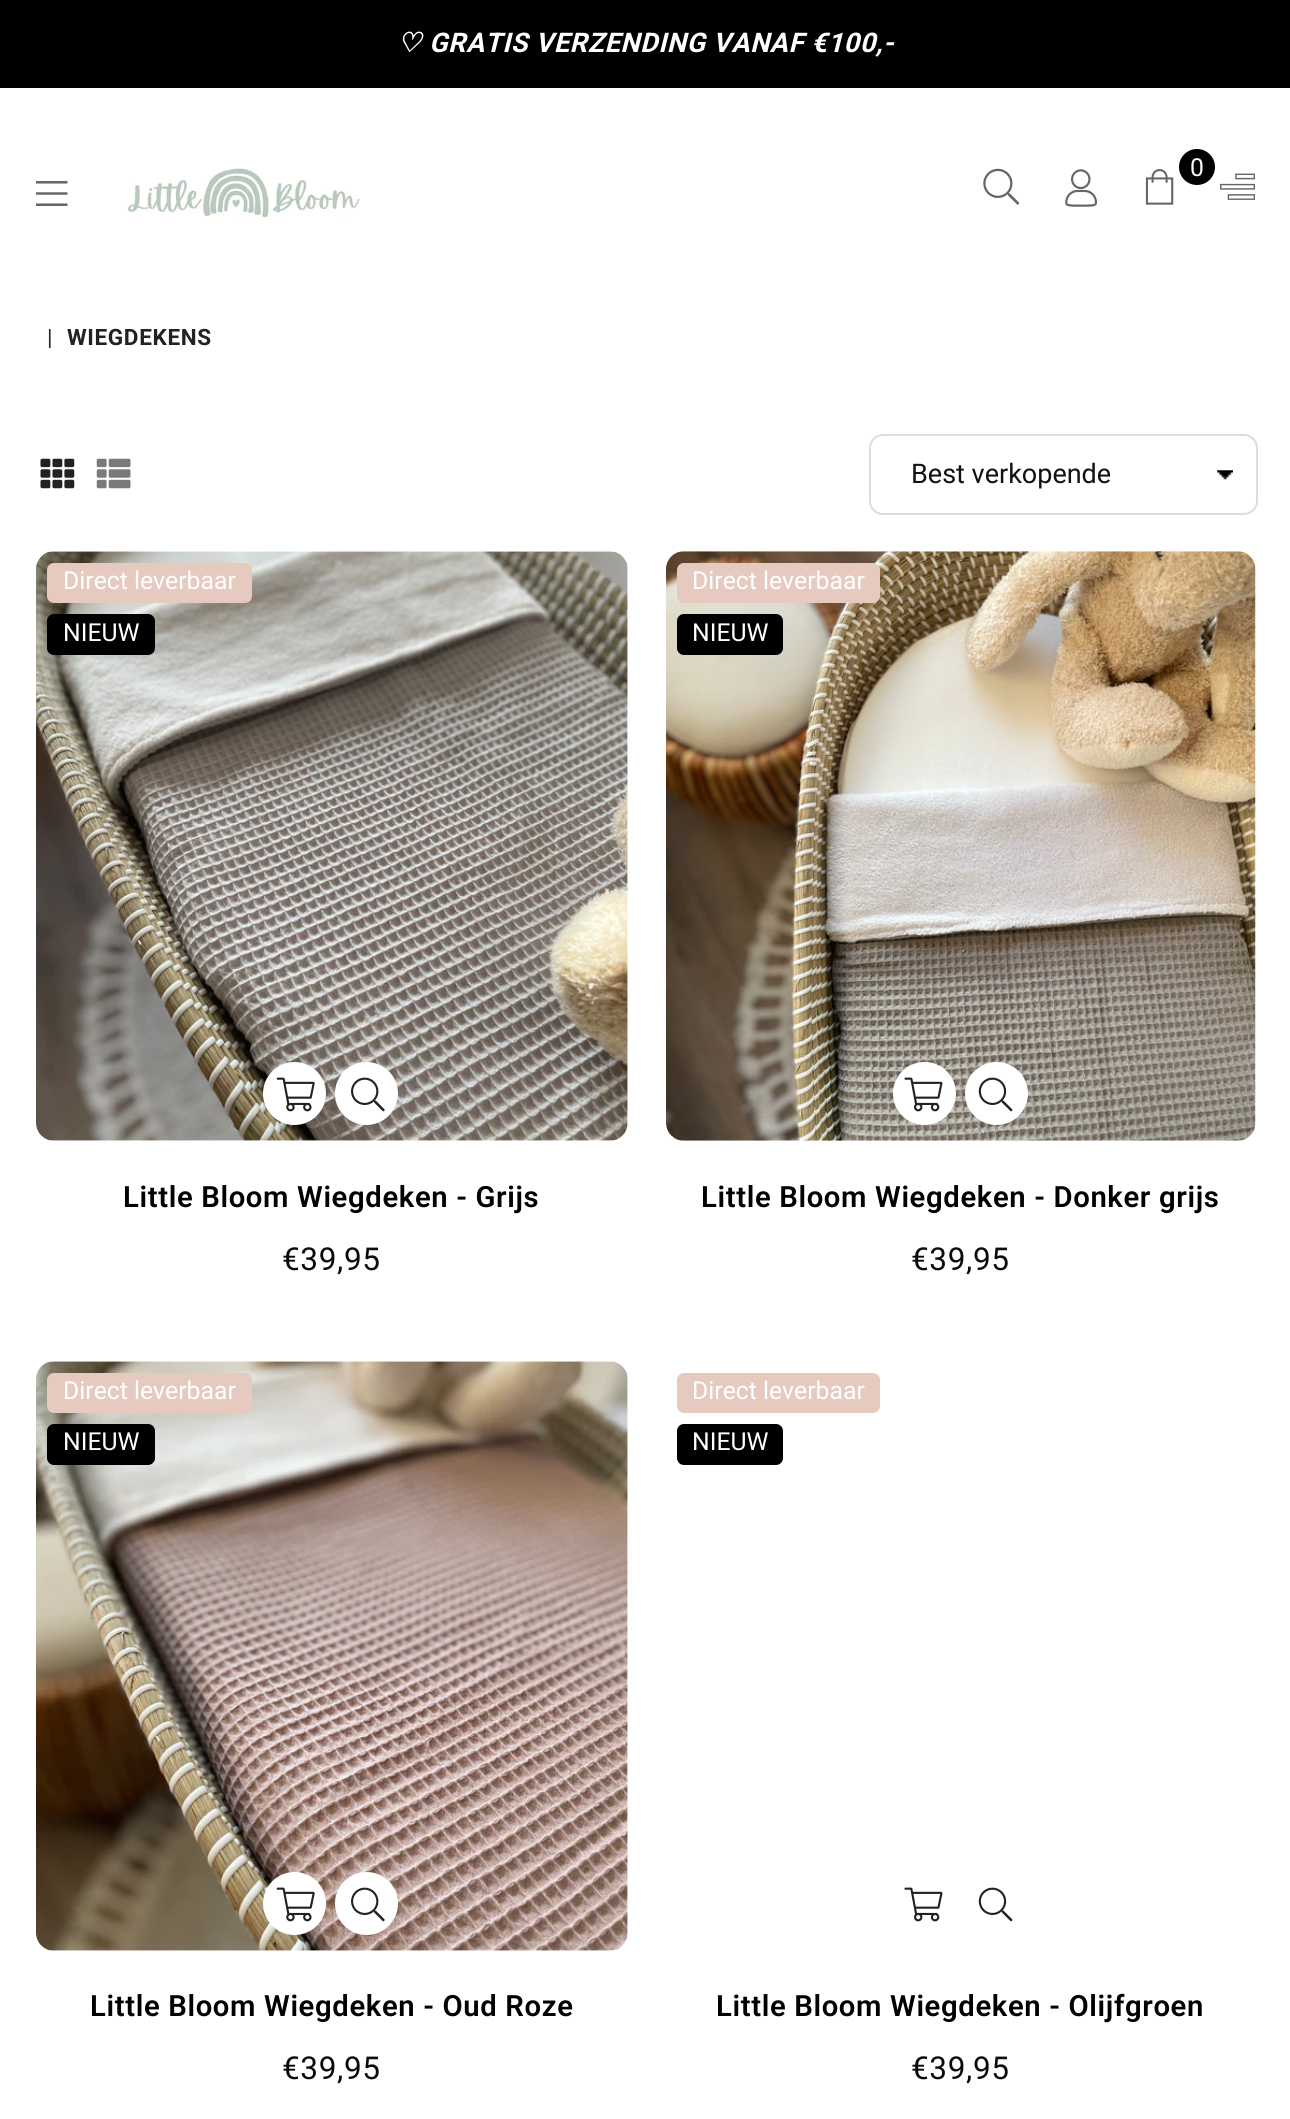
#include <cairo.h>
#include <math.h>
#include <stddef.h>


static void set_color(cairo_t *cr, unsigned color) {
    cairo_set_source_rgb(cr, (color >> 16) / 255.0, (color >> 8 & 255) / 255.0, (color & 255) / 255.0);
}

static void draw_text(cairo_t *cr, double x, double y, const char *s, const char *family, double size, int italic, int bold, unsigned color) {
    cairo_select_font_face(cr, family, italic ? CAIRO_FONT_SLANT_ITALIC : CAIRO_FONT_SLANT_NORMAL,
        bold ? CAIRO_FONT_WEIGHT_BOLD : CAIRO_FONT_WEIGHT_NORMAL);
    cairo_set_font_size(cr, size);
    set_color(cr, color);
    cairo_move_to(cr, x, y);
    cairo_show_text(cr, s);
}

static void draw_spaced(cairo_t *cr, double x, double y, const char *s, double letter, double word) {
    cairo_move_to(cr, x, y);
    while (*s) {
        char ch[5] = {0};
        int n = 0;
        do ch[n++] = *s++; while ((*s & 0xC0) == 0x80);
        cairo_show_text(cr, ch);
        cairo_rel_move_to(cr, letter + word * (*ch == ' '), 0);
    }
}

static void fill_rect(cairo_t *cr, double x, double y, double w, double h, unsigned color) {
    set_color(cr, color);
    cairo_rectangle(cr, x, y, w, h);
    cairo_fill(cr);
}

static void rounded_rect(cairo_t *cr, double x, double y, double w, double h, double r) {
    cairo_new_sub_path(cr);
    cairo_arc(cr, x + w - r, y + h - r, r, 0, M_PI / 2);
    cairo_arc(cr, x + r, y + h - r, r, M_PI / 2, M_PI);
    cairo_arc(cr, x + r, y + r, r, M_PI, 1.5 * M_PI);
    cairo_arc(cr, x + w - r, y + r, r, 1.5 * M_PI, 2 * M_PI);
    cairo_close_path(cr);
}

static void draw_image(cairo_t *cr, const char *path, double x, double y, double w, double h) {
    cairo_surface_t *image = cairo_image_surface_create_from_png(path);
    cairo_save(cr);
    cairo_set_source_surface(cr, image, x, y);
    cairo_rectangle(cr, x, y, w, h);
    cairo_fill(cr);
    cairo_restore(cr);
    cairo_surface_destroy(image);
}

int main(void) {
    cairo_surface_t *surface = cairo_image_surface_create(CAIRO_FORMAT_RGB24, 1290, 2119);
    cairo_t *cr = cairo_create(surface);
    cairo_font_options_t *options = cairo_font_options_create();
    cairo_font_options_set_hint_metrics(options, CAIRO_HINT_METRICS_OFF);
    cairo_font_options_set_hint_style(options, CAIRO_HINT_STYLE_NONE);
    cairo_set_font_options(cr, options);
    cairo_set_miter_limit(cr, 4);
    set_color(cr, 0xFFFFFF);
    cairo_paint(cr);
    fill_rect(cr, 0, 0, 1290, 88, 0x000000);
    cairo_select_font_face(cr, "DejaVu Sans", CAIRO_FONT_SLANT_ITALIC, CAIRO_FONT_WEIGHT_BOLD);
    cairo_set_font_size(cr, 27);
    set_color(cr, 0xFFFFFF);
    draw_spaced(cr, 397, 52, "♡", 0.65, 0);
    cairo_select_font_face(cr, "Roboto", CAIRO_FONT_SLANT_ITALIC, CAIRO_FONT_WEIGHT_BOLD);
    draw_spaced(cr, 429, 52, "GRATIS VERZENDING VANAF €100,-", 0.65, 0);
    draw_image(cr, "assets/img1.png", 36, 181, 32, 25);
    draw_image(cr, "assets/img2.png", 127, 168, 233, 50);
    draw_image(cr, "assets/img3.png", 983, 168, 37, 37);
    draw_image(cr, "assets/img4.png", 1065, 169, 33, 38);
    draw_image(cr, "assets/img5.png", 1145, 169, 29, 36);
    set_color(cr, 0x000000);
    cairo_arc(cr, 1197, 167, 18, 0, 2 * M_PI);
    cairo_fill(cr);
    cairo_select_font_face(cr, "Roboto", CAIRO_FONT_SLANT_NORMAL, CAIRO_FONT_WEIGHT_NORMAL);
    cairo_set_font_size(cr, 24.75);
    set_color(cr, 0xFFFFFF);
    draw_spaced(cr, 1190, 176, "0", 0.65, 0);
    draw_image(cr, "assets/img6.png", 1220, 173, 35, 27);
    cairo_set_font_size(cr, 22.5);
    set_color(cr, 0x222222);
    draw_spaced(cr, 47, 345, "|", 0.65, 0);
    cairo_select_font_face(cr, "Roboto", CAIRO_FONT_SLANT_NORMAL, CAIRO_FONT_WEIGHT_BOLD);
    draw_spaced(cr, 67, 345, "WIEGDEKENS", 0.65, 0);
    draw_image(cr, "assets/img7.png", 40, 458, 35, 31);
    draw_image(cr, "assets/img8.png", 96, 458, 35, 31);
    draw_image(cr, "assets/img9.png", 1217, 470, 16, 10);
    rounded_rect(cr, 870, 435, 387, 79, 13);
    set_color(cr, 0xDDDDDD);
    cairo_stroke(cr);
    draw_text(cr, 911, 483, "Best verkopende", "Roboto", 27, 0, 0, 0x111111);
    draw_image(cr, "assets/img10.png", 36, 551, 592, 590);
    set_color(cr, 0xE6CABF);
    rounded_rect(cr, 47, 563, 205, 40, 7);
    cairo_fill(cr);
    draw_text(cr, 63, 589, "Direct leverbaar", "Roboto", 24.75, 0, 0, 0xFFFFFF);
    set_color(cr, 0x000000);
    rounded_rect(cr, 47, 614, 108, 41, 7);
    cairo_fill(cr);
    draw_text(cr, 63, 641, "NIEUW", "Roboto", 24.75, 0, 0, 0xFFFFFF);
    cairo_new_path(cr);
    cairo_arc(cr, 294.5, 1093.5, 31.5, 0, 2 * M_PI);
    cairo_fill(cr);
    draw_image(cr, "assets/img11.png", 276, 1077, 39, 35);
    cairo_arc(cr, 366.5, 1093.5, 31.5, 0, 2 * M_PI);
    cairo_fill(cr);
    draw_image(cr, "assets/img12.png", 351, 1077, 34, 35);
    cairo_select_font_face(cr, "Roboto SemiBold", CAIRO_FONT_SLANT_NORMAL, CAIRO_FONT_WEIGHT_NORMAL);
    cairo_set_font_size(cr, 29.25);
    set_color(cr, 0x000000);
    draw_spaced(cr, 123, 1207, "Little Bloom Wiegdeken - Grijs", 0.65, 0);
    cairo_select_font_face(cr, "Roboto", CAIRO_FONT_SLANT_NORMAL, CAIRO_FONT_WEIGHT_NORMAL);
    cairo_set_font_size(cr, 31.5);
    set_color(cr, 0x090A0A);
    draw_spaced(cr, 282, 1270, "€39,95", 0.65, 0);
    draw_image(cr, "assets/img13.png", 666, 551, 590, 590);
    set_color(cr, 0xE6CABF);
    rounded_rect(cr, 677, 563, 203, 40, 7);
    cairo_fill(cr);
    draw_text(cr, 692, 589, "Direct leverbaar", "Roboto", 24.75, 0, 0, 0xFFFFFF);
    set_color(cr, 0x000000);
    rounded_rect(cr, 677, 614, 106, 41, 7);
    cairo_fill(cr);
    draw_text(cr, 692, 641, "NIEUW", "Roboto", 24.75, 0, 0, 0xFFFFFF);
    cairo_new_path(cr);
    cairo_arc(cr, 924.5, 1093.5, 31.5, 0, 2 * M_PI);
    cairo_fill(cr);
    draw_image(cr, "assets/img14.png", 904, 1077, 39, 35);
    cairo_arc(cr, 996.5, 1093.5, 31.5, 0, 2 * M_PI);
    cairo_fill(cr);
    draw_image(cr, "assets/img15.png", 978, 1077, 35, 35);
    cairo_select_font_face(cr, "Roboto SemiBold", CAIRO_FONT_SLANT_NORMAL, CAIRO_FONT_WEIGHT_NORMAL);
    cairo_set_font_size(cr, 29.25);
    set_color(cr, 0x000000);
    draw_spaced(cr, 701, 1207, "Little Bloom Wiegdeken - Donker grijs", 0.65, 0);
    cairo_select_font_face(cr, "Roboto", CAIRO_FONT_SLANT_NORMAL, CAIRO_FONT_WEIGHT_NORMAL);
    cairo_set_font_size(cr, 31.5);
    set_color(cr, 0x090A0A);
    draw_spaced(cr, 911, 1270, "€39,95", 0.65, 0);
    draw_image(cr, "assets/img16.png", 36, 1361, 592, 590);
    set_color(cr, 0xE6CABF);
    rounded_rect(cr, 47, 1373, 205, 40, 7);
    cairo_fill(cr);
    draw_text(cr, 63, 1399, "Direct leverbaar", "Roboto", 24.75, 0, 0, 0xFFFFFF);
    set_color(cr, 0x000000);
    rounded_rect(cr, 47, 1424, 108, 41, 7);
    cairo_fill(cr);
    draw_text(cr, 63, 1450, "NIEUW", "Roboto", 24.75, 0, 0, 0xFFFFFF);
    cairo_new_path(cr);
    cairo_arc(cr, 294.5, 1903.5, 31.5, 0, 2 * M_PI);
    cairo_fill(cr);
    draw_image(cr, "assets/img11.png", 276, 1887, 39, 35);
    cairo_arc(cr, 366.5, 1903.5, 31.5, 0, 2 * M_PI);
    cairo_fill(cr);
    draw_image(cr, "assets/img12.png", 351, 1887, 34, 35);
    cairo_select_font_face(cr, "Roboto SemiBold", CAIRO_FONT_SLANT_NORMAL, CAIRO_FONT_WEIGHT_NORMAL);
    cairo_set_font_size(cr, 29.25);
    set_color(cr, 0x000000);
    draw_spaced(cr, 90, 2016, "Little Bloom Wiegdeken - Oud Roze", 0.65, 0);
    cairo_select_font_face(cr, "Roboto", CAIRO_FONT_SLANT_NORMAL, CAIRO_FONT_WEIGHT_NORMAL);
    cairo_set_font_size(cr, 31.5);
    set_color(cr, 0x090A0A);
    draw_spaced(cr, 282, 2079, "€39,95", 0.65, 0);
    set_color(cr, 0xE6CABF);
    rounded_rect(cr, 677, 1373, 203, 40, 7);
    cairo_fill(cr);
    draw_text(cr, 692, 1399, "Direct leverbaar", "Roboto", 24.75, 0, 0, 0xFFFFFF);
    set_color(cr, 0x000000);
    rounded_rect(cr, 677, 1424, 106, 41, 7);
    cairo_fill(cr);
    draw_text(cr, 692, 1450, "NIEUW", "Roboto", 24.75, 0, 0, 0xFFFFFF);
    draw_image(cr, "assets/img14.png", 904, 1887, 39, 35);
    draw_image(cr, "assets/img15.png", 978, 1887, 35, 35);
    cairo_select_font_face(cr, "Roboto SemiBold", CAIRO_FONT_SLANT_NORMAL, CAIRO_FONT_WEIGHT_NORMAL);
    cairo_set_font_size(cr, 29.25);
    set_color(cr, 0x000000);
    draw_spaced(cr, 716, 2016, "Little Bloom Wiegdeken - Olijfgroen", 0.65, 0);
    cairo_select_font_face(cr, "Roboto", CAIRO_FONT_SLANT_NORMAL, CAIRO_FONT_WEIGHT_NORMAL);
    cairo_set_font_size(cr, 31.5);
    set_color(cr, 0x090A0A);
    draw_spaced(cr, 911, 2079, "€39,95", 0.65, 0);
    cairo_surface_write_to_png(surface, "output.png");
    cairo_font_options_destroy(options);
    cairo_destroy(cr);
    cairo_surface_destroy(surface);
    return 0;
}
